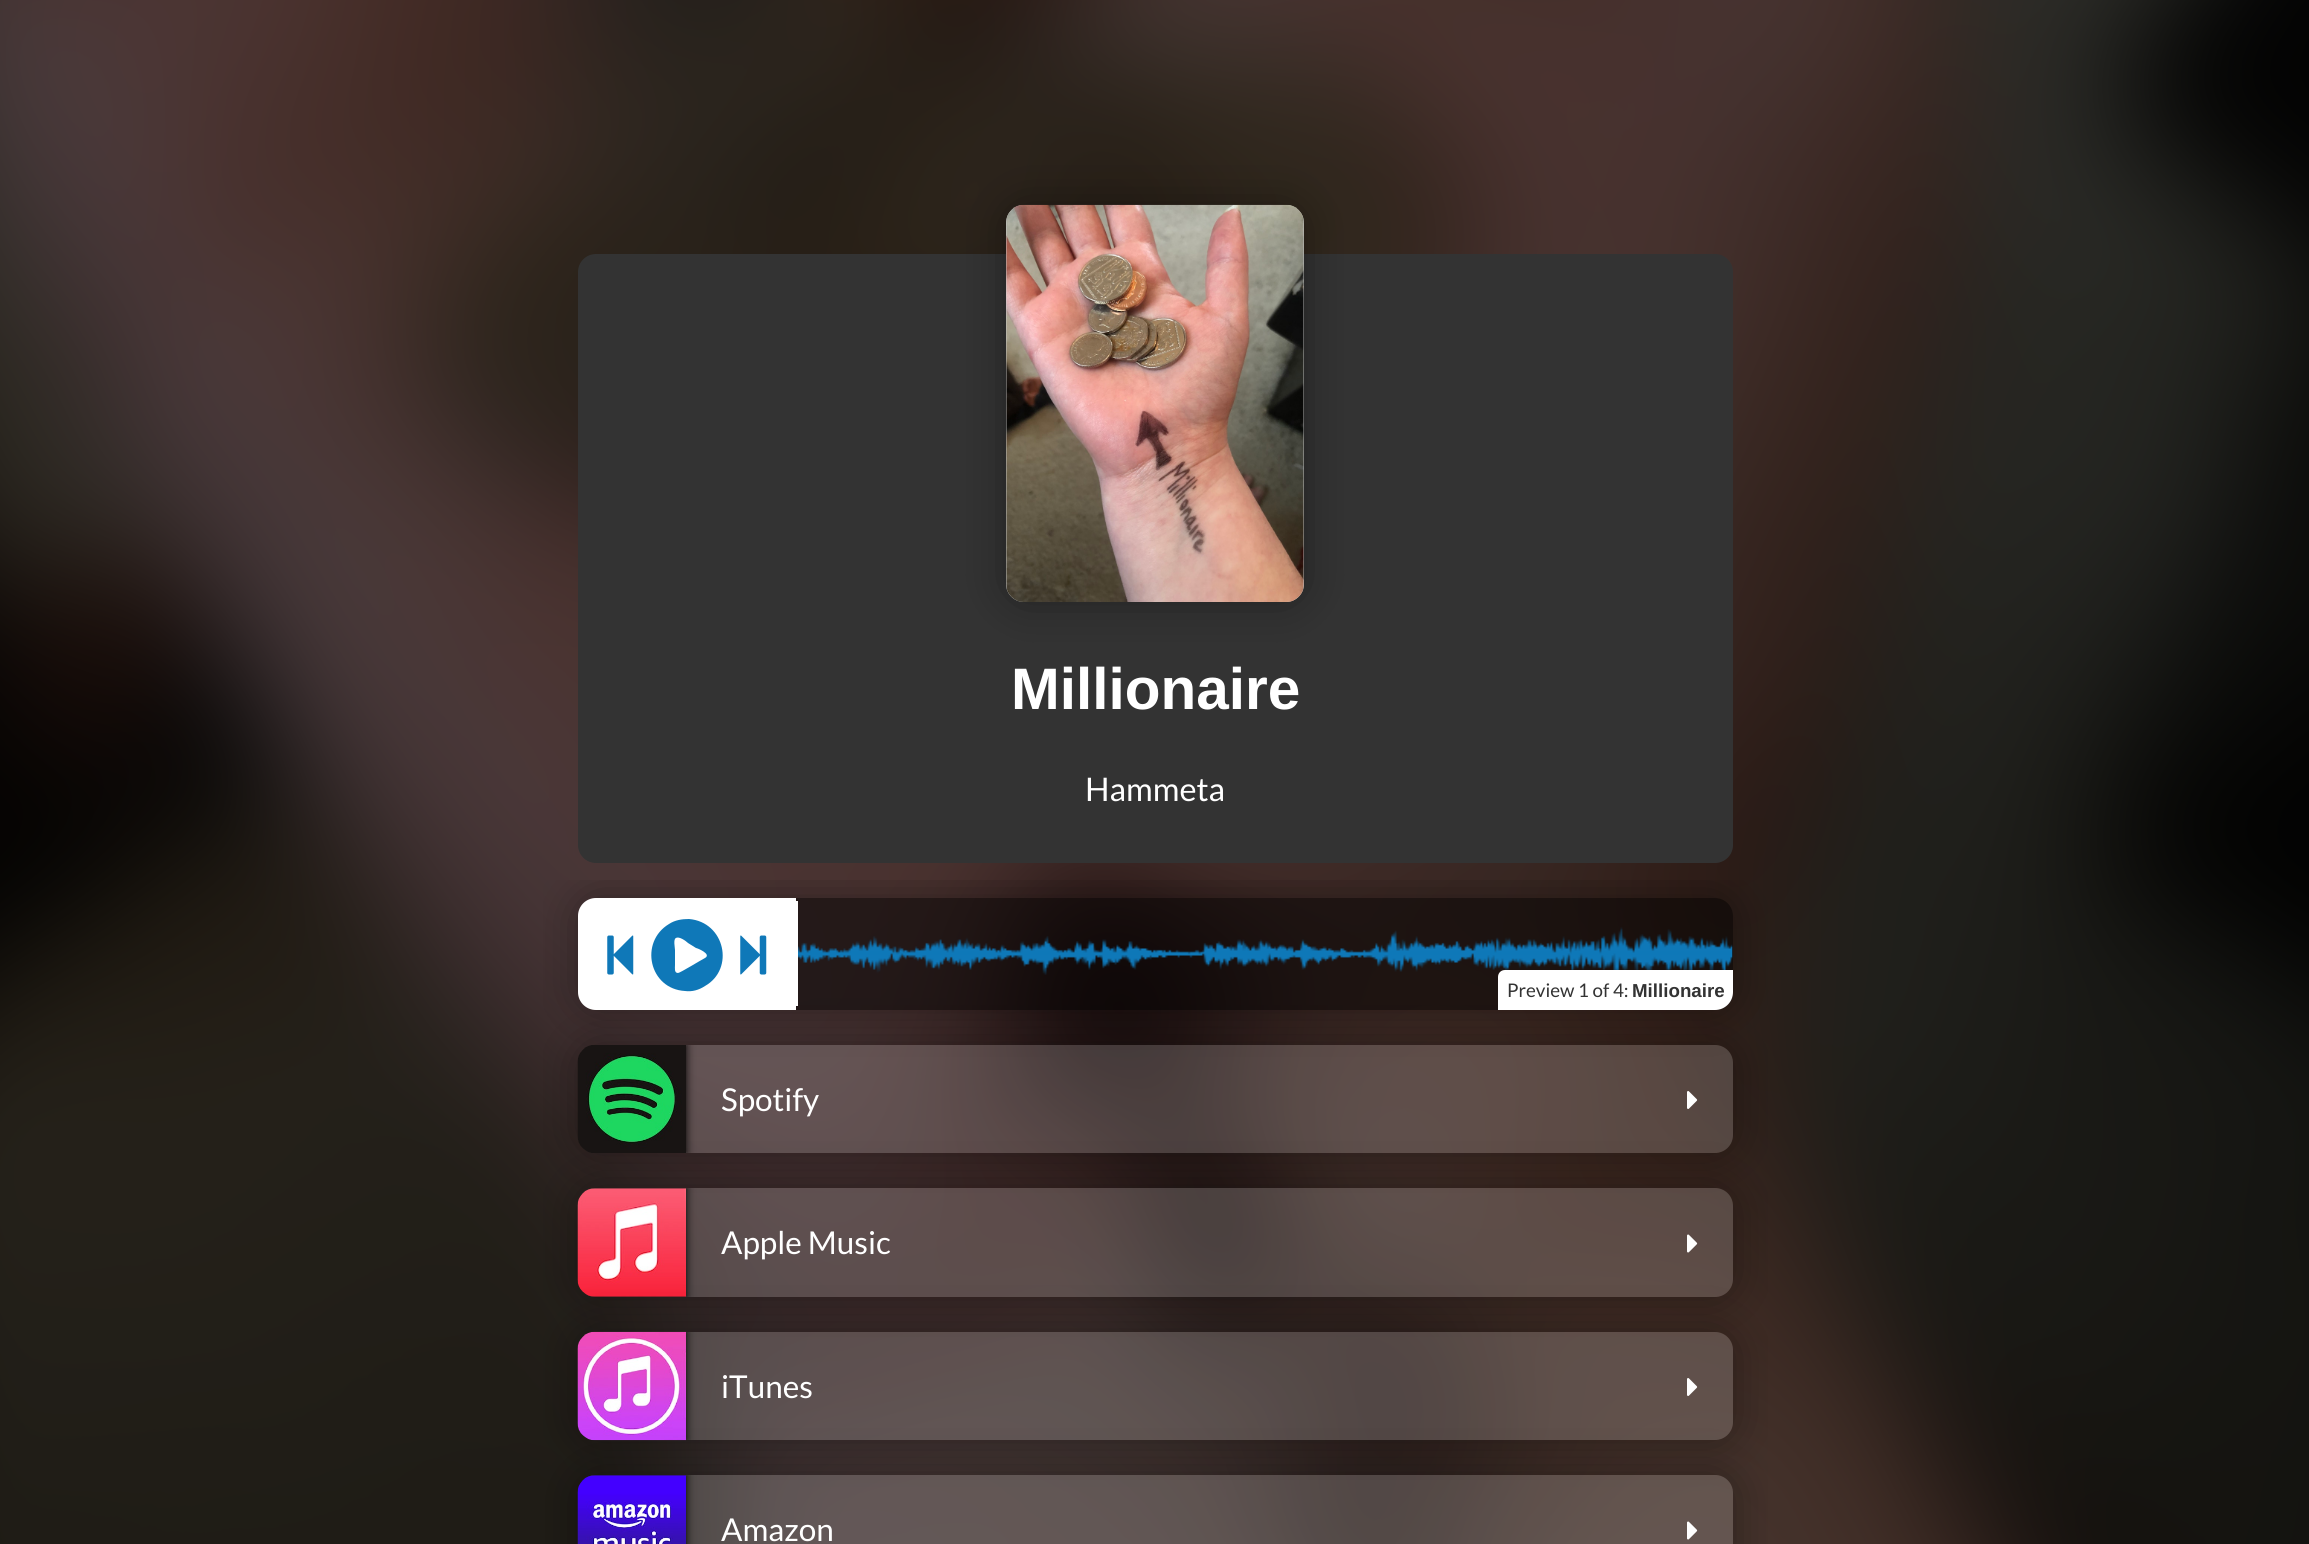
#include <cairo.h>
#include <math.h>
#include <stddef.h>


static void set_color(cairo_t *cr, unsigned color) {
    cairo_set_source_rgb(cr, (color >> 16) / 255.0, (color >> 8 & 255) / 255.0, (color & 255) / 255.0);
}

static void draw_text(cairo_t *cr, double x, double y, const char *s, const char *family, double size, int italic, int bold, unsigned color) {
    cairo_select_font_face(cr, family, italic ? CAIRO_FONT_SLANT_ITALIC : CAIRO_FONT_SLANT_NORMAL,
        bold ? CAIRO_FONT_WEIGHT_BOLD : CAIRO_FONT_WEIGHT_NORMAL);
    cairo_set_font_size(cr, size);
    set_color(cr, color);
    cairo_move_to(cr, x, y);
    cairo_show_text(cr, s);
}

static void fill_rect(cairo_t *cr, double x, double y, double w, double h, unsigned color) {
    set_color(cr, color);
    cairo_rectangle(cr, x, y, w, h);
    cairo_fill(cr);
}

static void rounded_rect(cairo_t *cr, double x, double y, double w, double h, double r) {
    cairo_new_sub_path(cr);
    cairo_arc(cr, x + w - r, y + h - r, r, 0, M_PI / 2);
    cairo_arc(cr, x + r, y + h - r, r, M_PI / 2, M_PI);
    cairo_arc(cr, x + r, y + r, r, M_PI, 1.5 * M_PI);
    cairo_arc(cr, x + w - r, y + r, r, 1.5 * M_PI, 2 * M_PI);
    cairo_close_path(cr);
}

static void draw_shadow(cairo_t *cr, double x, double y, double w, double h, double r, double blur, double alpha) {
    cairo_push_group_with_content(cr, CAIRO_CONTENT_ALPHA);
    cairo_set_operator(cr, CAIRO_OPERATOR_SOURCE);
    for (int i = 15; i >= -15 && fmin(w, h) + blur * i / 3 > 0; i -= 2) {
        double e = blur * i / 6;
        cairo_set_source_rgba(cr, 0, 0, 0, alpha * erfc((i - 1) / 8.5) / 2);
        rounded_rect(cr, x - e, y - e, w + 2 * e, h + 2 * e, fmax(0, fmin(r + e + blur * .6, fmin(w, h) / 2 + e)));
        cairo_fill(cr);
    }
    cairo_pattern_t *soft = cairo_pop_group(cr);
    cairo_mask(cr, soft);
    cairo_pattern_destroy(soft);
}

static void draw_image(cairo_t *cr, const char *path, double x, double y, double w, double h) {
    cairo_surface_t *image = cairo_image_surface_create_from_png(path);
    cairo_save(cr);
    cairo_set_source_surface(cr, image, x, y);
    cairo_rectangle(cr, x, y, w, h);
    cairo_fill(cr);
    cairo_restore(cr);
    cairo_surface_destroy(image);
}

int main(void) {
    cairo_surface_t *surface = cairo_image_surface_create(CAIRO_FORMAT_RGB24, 2309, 1544);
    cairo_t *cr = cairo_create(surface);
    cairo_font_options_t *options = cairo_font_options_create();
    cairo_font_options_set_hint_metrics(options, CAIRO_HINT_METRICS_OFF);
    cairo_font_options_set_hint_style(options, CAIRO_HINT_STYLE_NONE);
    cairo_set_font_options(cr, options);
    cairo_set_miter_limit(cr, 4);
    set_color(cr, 0x000000);
    cairo_paint(cr);
    draw_image(cr, "assets/img1.png", 0, 0, 2309, 1544);
    set_color(cr, 0x333333);
    rounded_rect(cr, 578, 254, 1155, 609, 18);
    cairo_fill(cr);
    set_color(cr, 0x000000);
    draw_shadow(cr, 1006, 205, 298, 397, 18, 22, 0.35);
    set_color(cr, 0xCCCCCC);
    rounded_rect(cr, 1006, 205, 298, 397, 18);
    cairo_fill(cr);
    draw_image(cr, "assets/img2.png", 1006, 204, 298, 398);
    draw_text(cr, 1011, 709, "Millionaire", "Liberation Sans", 58.5, 0, 1, 0xFFFFFF);
    draw_text(cr, 1085, 801, "Hammeta", "Lato", 32.5, 0, 0, 0xFFFFFF);
    cairo_save(cr);
    cairo_rectangle(cr, 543, 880, 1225, 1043);
    cairo_clip(cr);
    cairo_set_fill_rule(cr, CAIRO_FILL_RULE_EVEN_ODD);
    cairo_new_path(cr);
    cairo_move_to(cr, 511, 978);
    cairo_line_to(cr, 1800, 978);
    cairo_line_to(cr, 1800, 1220);
    cairo_line_to(cr, 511, 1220);
    cairo_close_path(cr);
    cairo_move_to(cr, 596, 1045);
    cairo_line_to(cr, 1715, 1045);
    cairo_curve_to(cr, 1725, 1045, 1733, 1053, 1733, 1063);
    cairo_line_to(cr, 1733, 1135);
    cairo_curve_to(cr, 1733, 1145, 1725, 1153, 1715, 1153);
    cairo_line_to(cr, 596, 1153);
    cairo_curve_to(cr, 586, 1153, 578, 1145, 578, 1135);
    cairo_line_to(cr, 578, 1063);
    cairo_curve_to(cr, 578, 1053, 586, 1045, 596, 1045);
    cairo_close_path(cr);
    cairo_clip(cr);
    set_color(cr, 0x000000);
    draw_shadow(cr, 578, 1045, 1155, 108, 18, 22, 0.35);
    cairo_restore(cr);
    cairo_set_source_rgba(cr, 1, 1, 1, 0.17);
    rounded_rect(cr, 578, 1045, 1155, 108, 18);
    cairo_fill(cr);
    cairo_save(cr);
    rounded_rect(cr, 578, 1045, 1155, 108, 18);
    cairo_clip(cr);
    set_color(cr, 0x000000);
    draw_shadow(cr, 578, 1045, 108, 108, 0, 4.5, 1);
    cairo_restore(cr);
    draw_image(cr, "assets/img6.png", 577, 1045, 109, 108);
    cairo_save(cr);
    cairo_rectangle(cr, 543, 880, 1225, 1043);
    cairo_clip(cr);
    cairo_set_fill_rule(cr, CAIRO_FILL_RULE_EVEN_ODD);
    cairo_new_path(cr);
    cairo_move_to(cr, 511, 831);
    cairo_line_to(cr, 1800, 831);
    cairo_line_to(cr, 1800, 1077);
    cairo_line_to(cr, 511, 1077);
    cairo_close_path(cr);
    cairo_move_to(cr, 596, 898);
    cairo_line_to(cr, 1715, 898);
    cairo_curve_to(cr, 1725, 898, 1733, 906, 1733, 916);
    cairo_line_to(cr, 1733, 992);
    cairo_curve_to(cr, 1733, 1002, 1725, 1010, 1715, 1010);
    cairo_line_to(cr, 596, 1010);
    cairo_curve_to(cr, 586, 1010, 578, 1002, 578, 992);
    cairo_line_to(cr, 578, 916);
    cairo_curve_to(cr, 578, 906, 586, 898, 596, 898);
    cairo_close_path(cr);
    cairo_clip(cr);
    set_color(cr, 0x000000);
    draw_shadow(cr, 578, 898, 1155, 112, 18, 22, 0.35);
    cairo_restore(cr);
    set_color(cr, 0xFFFFFF);
    cairo_new_path(cr);
    cairo_move_to(cr, 596, 898);
    cairo_line_to(cr, 796, 898);
    cairo_line_to(cr, 796, 1010);
    cairo_line_to(cr, 596, 1010);
    cairo_curve_to(cr, 586, 1010, 578, 1002, 578, 992);
    cairo_line_to(cr, 578, 916);
    cairo_curve_to(cr, 578, 906, 586, 898, 596, 898);
    cairo_close_path(cr);
    cairo_fill(cr);
    draw_image(cr, "assets/img3.png", 607, 935, 27, 40);
    set_color(cr, 0x0F78B8);
    cairo_new_path(cr);
    cairo_move_to(cr, 669, 924);
    cairo_curve_to(cr, 675, 920, 682, 919, 689, 919);
    cairo_curve_to(cr, 725, 922, 735, 969, 705, 986);
    cairo_curve_to(cr, 699, 990, 692, 992, 685, 991);
    cairo_curve_to(cr, 649, 989, 639, 942, 669, 924);
    cairo_close_path(cr);
    cairo_move_to(cr, 705, 958);
    cairo_curve_to(cr, 712, 954, 697, 948, 696, 948);
    cairo_line_to(cr, 688, 943);
    cairo_curve_to(cr, 686, 941, 679, 936, 676, 938);
    cairo_curve_to(cr, 673, 939, 675, 948, 675, 950);
    cairo_line_to(cr, 675, 965);
    cairo_curve_to(cr, 675, 968, 674, 973, 678, 973);
    cairo_curve_to(cr, 680, 973, 701, 960, 705, 958);
    cairo_close_path(cr);
    cairo_fill(cr);
    draw_image(cr, "assets/img4.png", 740, 935, 27, 40);
    cairo_set_source_rgba(cr, 0, 0, 0, 0.5);
    cairo_new_path(cr);
    cairo_move_to(cr, 796, 898);
    cairo_line_to(cr, 1715, 898);
    cairo_curve_to(cr, 1725, 898, 1733, 906, 1733, 916);
    cairo_line_to(cr, 1733, 992);
    cairo_curve_to(cr, 1733, 1002, 1725, 1010, 1715, 1010);
    cairo_line_to(cr, 796, 1010);
    cairo_close_path(cr);
    cairo_fill(cr);
    fill_rect(cr, 796, 901, 2, 105, 0xFFFFFF);
    draw_image(cr, "assets/img5.png", 798, 927, 935, 48);
    cairo_new_path(cr);
    cairo_move_to(cr, 1505, 970);
    cairo_line_to(cr, 1733, 970);
    cairo_line_to(cr, 1733, 992);
    cairo_curve_to(cr, 1733, 1002, 1725, 1010, 1715, 1010);
    cairo_line_to(cr, 1498, 1010);
    cairo_line_to(cr, 1498, 977);
    cairo_curve_to(cr, 1498, 973, 1501, 970, 1505, 970);
    cairo_close_path(cr);
    cairo_fill(cr);
    draw_text(cr, 1507, 997, "Preview 1 of 4:", "Lato", 18.75, 0, 0, 0x333333);
    draw_text(cr, 1632, 997, "Millionaire", "Liberation Sans", 18.75, 0, 1, 0x333333);
    draw_text(cr, 721, 1111, "Spotify", "Lato", 31.5, 0, 0, 0xFFFFFF);
    draw_image(cr, "assets/img7.png", 1687, 1091, 11, 18);
    cairo_save(cr);
    cairo_rectangle(cr, 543, 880, 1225, 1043);
    cairo_clip(cr);
    cairo_set_fill_rule(cr, CAIRO_FILL_RULE_EVEN_ODD);
    cairo_new_path(cr);
    cairo_move_to(cr, 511, 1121);
    cairo_line_to(cr, 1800, 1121);
    cairo_line_to(cr, 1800, 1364);
    cairo_line_to(cr, 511, 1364);
    cairo_close_path(cr);
    cairo_move_to(cr, 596, 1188);
    cairo_line_to(cr, 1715, 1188);
    cairo_curve_to(cr, 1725, 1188, 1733, 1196, 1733, 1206);
    cairo_line_to(cr, 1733, 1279);
    cairo_curve_to(cr, 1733, 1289, 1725, 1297, 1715, 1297);
    cairo_line_to(cr, 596, 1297);
    cairo_curve_to(cr, 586, 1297, 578, 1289, 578, 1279);
    cairo_line_to(cr, 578, 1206);
    cairo_curve_to(cr, 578, 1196, 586, 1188, 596, 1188);
    cairo_close_path(cr);
    cairo_clip(cr);
    set_color(cr, 0x000000);
    draw_shadow(cr, 578, 1188, 1155, 109, 18, 22, 0.35);
    cairo_restore(cr);
    cairo_set_source_rgba(cr, 1, 1, 1, 0.17);
    rounded_rect(cr, 578, 1188, 1155, 109, 18);
    cairo_fill(cr);
    cairo_save(cr);
    rounded_rect(cr, 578, 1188, 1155, 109, 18);
    cairo_clip(cr);
    set_color(cr, 0x000000);
    draw_shadow(cr, 578, 1188, 108, 109, 0, 4.5, 1);
    cairo_restore(cr);
    draw_image(cr, "assets/img8.png", 577, 1188, 109, 109);
    draw_text(cr, 721, 1254, "Apple Music", "Lato", 31.5, 0, 0, 0xFFFFFF);
    draw_image(cr, "assets/img9.png", 1687, 1234, 11, 19);
    cairo_save(cr);
    cairo_rectangle(cr, 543, 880, 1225, 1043);
    cairo_clip(cr);
    cairo_set_fill_rule(cr, CAIRO_FILL_RULE_EVEN_ODD);
    cairo_new_path(cr);
    cairo_move_to(cr, 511, 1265);
    cairo_line_to(cr, 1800, 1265);
    cairo_line_to(cr, 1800, 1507);
    cairo_line_to(cr, 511, 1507);
    cairo_close_path(cr);
    cairo_move_to(cr, 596, 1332);
    cairo_line_to(cr, 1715, 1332);
    cairo_curve_to(cr, 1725, 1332, 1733, 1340, 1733, 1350);
    cairo_line_to(cr, 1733, 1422);
    cairo_curve_to(cr, 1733, 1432, 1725, 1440, 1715, 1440);
    cairo_line_to(cr, 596, 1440);
    cairo_curve_to(cr, 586, 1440, 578, 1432, 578, 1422);
    cairo_line_to(cr, 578, 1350);
    cairo_curve_to(cr, 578, 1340, 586, 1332, 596, 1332);
    cairo_close_path(cr);
    cairo_clip(cr);
    set_color(cr, 0x000000);
    draw_shadow(cr, 578, 1332, 1155, 108, 18, 22, 0.35);
    cairo_restore(cr);
    cairo_set_source_rgba(cr, 1, 1, 1, 0.17);
    rounded_rect(cr, 578, 1332, 1155, 108, 18);
    cairo_fill(cr);
    cairo_save(cr);
    rounded_rect(cr, 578, 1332, 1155, 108, 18);
    cairo_clip(cr);
    set_color(cr, 0x000000);
    draw_shadow(cr, 578, 1332, 108, 108, 0, 4.5, 1);
    cairo_restore(cr);
    draw_image(cr, "assets/img10.png", 577, 1331, 109, 110);
    draw_text(cr, 721, 1398, "iTunes", "Lato", 31.5, 0, 0, 0xFFFFFF);
    draw_image(cr, "assets/img11.png", 1687, 1378, 11, 18);
    cairo_save(cr);
    cairo_rectangle(cr, 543, 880, 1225, 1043);
    cairo_clip(cr);
    cairo_set_fill_rule(cr, CAIRO_FILL_RULE_EVEN_ODD);
    cairo_new_path(cr);
    cairo_move_to(cr, 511, 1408);
    cairo_line_to(cr, 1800, 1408);
    cairo_line_to(cr, 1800, 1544);
    cairo_line_to(cr, 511, 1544);
    cairo_close_path(cr);
    cairo_move_to(cr, 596, 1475);
    cairo_line_to(cr, 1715, 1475);
    cairo_curve_to(cr, 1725, 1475, 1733, 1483, 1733, 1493);
    cairo_line_to(cr, 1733, 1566);
    cairo_curve_to(cr, 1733, 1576, 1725, 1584, 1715, 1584);
    cairo_line_to(cr, 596, 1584);
    cairo_curve_to(cr, 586, 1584, 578, 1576, 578, 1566);
    cairo_line_to(cr, 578, 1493);
    cairo_curve_to(cr, 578, 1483, 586, 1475, 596, 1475);
    cairo_close_path(cr);
    cairo_clip(cr);
    set_color(cr, 0x000000);
    draw_shadow(cr, 578, 1475, 1155, 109, 18, 22, 0.35);
    cairo_restore(cr);
    cairo_set_source_rgba(cr, 1, 1, 1, 0.17);
    rounded_rect(cr, 578, 1475, 1155, 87, 18);
    cairo_fill(cr);
    cairo_save(cr);
    rounded_rect(cr, 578, 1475, 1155, 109, 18);
    cairo_clip(cr);
    set_color(cr, 0x000000);
    draw_shadow(cr, 578, 1475, 108, 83, 0, 4.5, 1);
    cairo_restore(cr);
    draw_image(cr, "assets/img12.png", 577, 1475, 109, 69);
    draw_text(cr, 721, 1541, "Amazon", "Lato", 31.5, 0, 0, 0xFFFFFF);
    draw_image(cr, "assets/img13.png", 1687, 1521, 11, 19);
    cairo_surface_write_to_png(surface, "output.png");
    cairo_font_options_destroy(options);
    cairo_destroy(cr);
    cairo_surface_destroy(surface);
    return 0;
}
